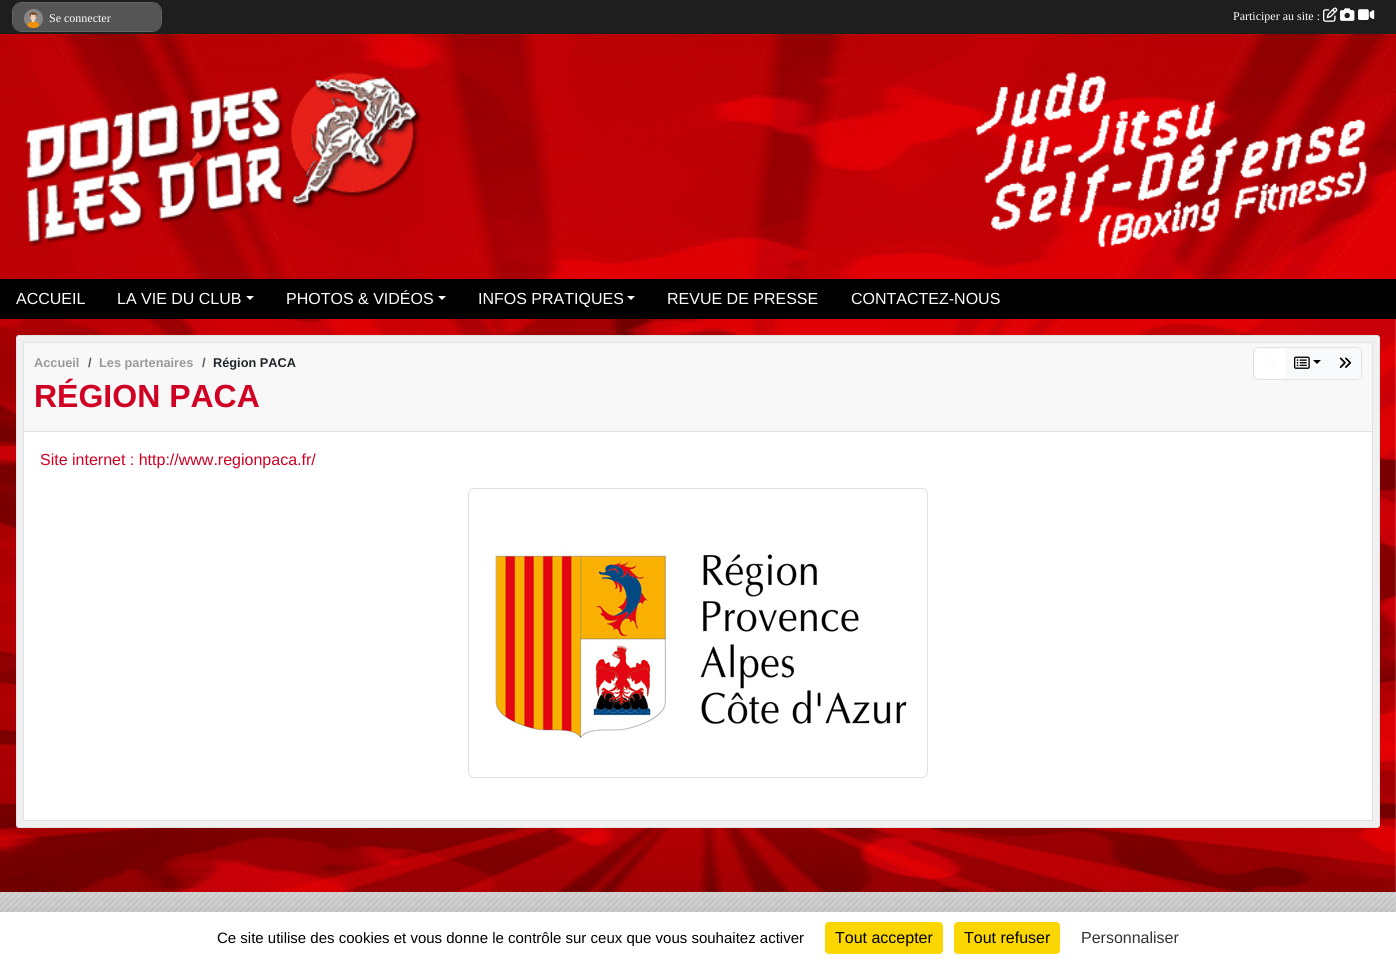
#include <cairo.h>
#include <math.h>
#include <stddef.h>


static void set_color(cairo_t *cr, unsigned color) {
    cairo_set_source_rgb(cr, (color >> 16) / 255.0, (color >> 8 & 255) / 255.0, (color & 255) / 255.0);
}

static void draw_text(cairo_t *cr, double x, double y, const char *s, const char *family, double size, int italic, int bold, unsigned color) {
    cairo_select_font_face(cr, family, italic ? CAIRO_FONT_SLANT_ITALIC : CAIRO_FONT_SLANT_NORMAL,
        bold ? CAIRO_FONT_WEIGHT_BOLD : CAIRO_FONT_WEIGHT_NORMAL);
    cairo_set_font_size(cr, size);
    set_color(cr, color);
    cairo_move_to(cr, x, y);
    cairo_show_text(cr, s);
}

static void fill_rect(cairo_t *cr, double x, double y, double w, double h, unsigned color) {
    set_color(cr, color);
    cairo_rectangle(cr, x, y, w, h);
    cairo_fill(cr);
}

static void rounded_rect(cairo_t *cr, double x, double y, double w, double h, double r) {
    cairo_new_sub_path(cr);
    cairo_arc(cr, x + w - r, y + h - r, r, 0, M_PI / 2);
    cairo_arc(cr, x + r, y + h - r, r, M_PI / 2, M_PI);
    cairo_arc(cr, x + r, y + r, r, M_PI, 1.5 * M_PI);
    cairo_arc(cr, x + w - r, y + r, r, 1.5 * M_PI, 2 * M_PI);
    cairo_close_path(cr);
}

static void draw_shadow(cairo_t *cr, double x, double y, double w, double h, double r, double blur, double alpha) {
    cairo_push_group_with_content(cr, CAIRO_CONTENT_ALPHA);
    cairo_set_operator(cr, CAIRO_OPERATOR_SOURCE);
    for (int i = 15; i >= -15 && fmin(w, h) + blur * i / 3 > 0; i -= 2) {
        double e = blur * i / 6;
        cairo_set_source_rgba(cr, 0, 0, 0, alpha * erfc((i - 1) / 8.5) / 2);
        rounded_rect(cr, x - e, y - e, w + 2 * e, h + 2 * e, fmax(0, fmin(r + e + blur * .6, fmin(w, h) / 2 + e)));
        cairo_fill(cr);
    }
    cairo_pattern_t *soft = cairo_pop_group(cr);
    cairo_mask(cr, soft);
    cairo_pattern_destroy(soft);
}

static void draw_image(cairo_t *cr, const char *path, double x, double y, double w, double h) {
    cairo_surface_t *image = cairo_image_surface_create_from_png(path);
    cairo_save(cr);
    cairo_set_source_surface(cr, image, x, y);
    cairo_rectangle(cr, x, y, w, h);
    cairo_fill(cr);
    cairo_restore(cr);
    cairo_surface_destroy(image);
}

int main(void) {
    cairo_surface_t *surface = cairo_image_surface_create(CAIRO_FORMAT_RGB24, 1396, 964);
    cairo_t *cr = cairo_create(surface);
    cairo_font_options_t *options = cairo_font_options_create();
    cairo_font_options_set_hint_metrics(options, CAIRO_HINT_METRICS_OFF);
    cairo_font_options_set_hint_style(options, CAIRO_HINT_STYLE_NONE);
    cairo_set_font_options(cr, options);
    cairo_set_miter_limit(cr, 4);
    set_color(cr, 0xFFFFFF);
    cairo_paint(cr);
    draw_image(cr, "assets/img1.png", 0, 319, 1396, 573);
    fill_rect(cr, 0, 0, 1396, 34, 0x1E1E1E);
    rounded_rect(cr, 12.5, 2.5, 149, 29, 9.5);
    set_color(cr, 0x666666);
    cairo_set_line_width(cr, 1);
    cairo_stroke(cr);
    set_color(cr, 0x555555);
    rounded_rect(cr, 13, 3, 148, 28, 9);
    cairo_fill(cr);
    draw_image(cr, "assets/img2.png", 24, 9, 19, 19);
    draw_text(cr, 49, 22, "Se connecter", "Liberation Serif", 12, 0, 0, 0xFFFFFF);
    draw_text(cr, 1233, 20, "Participer au site :", "Liberation Serif", 12, 0, 0, 0xFFFFFF);
    draw_image(cr, "assets/img3.png", 1323, 7, 15, 15);
    draw_image(cr, "assets/img4.png", 1340, 8, 15, 13);
    draw_image(cr, "assets/img5.png", 1358, 9, 17, 11);
    draw_image(cr, "assets/img6.png", 0, 34, 1396, 245);
    fill_rect(cr, 0, 279, 1396, 40, 0x000000);
    draw_text(cr, 16, 304, "ACCUEIL", "Liberation Sans", 16, 0, 0, 0xFFFFFF);
    draw_text(cr, 117, 304, "LA VIE DU CLUB", "Liberation Sans", 16, 0, 0, 0xFFFFFF);
    cairo_new_path(cr);
    cairo_move_to(cr, 246, 296);
    cairo_line_to(cr, 254, 296);
    cairo_line_to(cr, 250, 300);
    cairo_close_path(cr);
    cairo_fill(cr);
    draw_text(cr, 286, 304, "PHOTOS & VIDÉOS", "Liberation Sans", 16, 0, 0, 0xFFFFFF);
    cairo_new_path(cr);
    cairo_move_to(cr, 438, 296);
    cairo_line_to(cr, 446, 296);
    cairo_line_to(cr, 442, 300);
    cairo_close_path(cr);
    cairo_fill(cr);
    draw_text(cr, 478, 304, "INFOS PRATIQUES", "Liberation Sans", 16, 0, 0, 0xFFFFFF);
    cairo_new_path(cr);
    cairo_move_to(cr, 627, 296);
    cairo_line_to(cr, 635, 296);
    cairo_line_to(cr, 631, 300);
    cairo_close_path(cr);
    cairo_fill(cr);
    draw_text(cr, 667, 304, "REVUE DE PRESSE", "Liberation Sans", 16, 0, 0, 0xFFFFFF);
    draw_text(cr, 851, 304, "CONTACTEZ-NOUS", "Liberation Sans", 16, 0, 0, 0xFFFFFF);
    set_color(cr, 0xF0F0F0);
    rounded_rect(cr, 16.5, 335.5, 1363, 492, 2.5);
    cairo_fill_preserve(cr);
    set_color(cr, 0xE1E1E1);
    cairo_stroke(cr);
    fill_rect(cr, 24, 432, 1348, 388, 0xFFFFFF);
    cairo_rectangle(cr, 23.5, 342.5, 1349, 478);
    set_color(cr, 0xE1E1E1);
    cairo_stroke(cr);
    fill_rect(cr, 24, 343, 1348, 88, 0xF8F8F8);
    fill_rect(cr, 24, 431, 1348, 1, 0xE1E1E1);
    draw_text(cr, 34, 367, "Accueil", "Liberation Sans", 12.75, 0, 1, 0x999999);
    draw_text(cr, 88, 367, "/", "Liberation Sans", 12.75, 0, 1, 0x575A5D);
    draw_text(cr, 99, 367, "Les partenaires", "Liberation Sans", 12.75, 0, 1, 0x999999);
    draw_text(cr, 202, 367, "/", "Liberation Sans", 12.75, 0, 1, 0x575A5D);
    draw_text(cr, 213, 367, "Région PACA", "Liberation Sans", 12.75, 0, 1, 0x212529);
    set_color(cr, 0xFFFFFF);
    rounded_rect(cr, 1253.5, 347.5, 108, 32, 5.5);
    cairo_fill_preserve(cr);
    set_color(cr, 0xE1E1E1);
    cairo_stroke(cr);
    cairo_new_path(cr);
    cairo_move_to(cr, 1258, 348.5);
    cairo_line_to(cr, 1285.5, 348.5);
    cairo_line_to(cr, 1285.5, 378.5);
    cairo_line_to(cr, 1258, 378.5);
    cairo_curve_to(cr, 1256, 378.5, 1254.5, 377, 1254.5, 375);
    cairo_line_to(cr, 1254.5, 352);
    cairo_curve_to(cr, 1254.5, 350, 1256, 348.5, 1258, 348.5);
    cairo_close_path(cr);
    cairo_set_source_rgba(cr, 0.973, 0.976, 0.98, 0.65);
    cairo_stroke(cr);
    draw_image(cr, "assets/img7.png", 1264, 358, 11, 10);
    fill_rect(cr, 1286, 348, 43, 31, 0xF8F9FA);
    draw_image(cr, "assets/img8.png", 1294, 356, 16, 13);
    set_color(cr, 0x000000);
    cairo_new_path(cr);
    cairo_move_to(cr, 1313, 360);
    cairo_line_to(cr, 1321, 360);
    cairo_line_to(cr, 1317, 364);
    cairo_close_path(cr);
    cairo_fill(cr);
    set_color(cr, 0xF8F9FA);
    cairo_new_path(cr);
    cairo_move_to(cr, 1329.5, 348.5);
    cairo_line_to(cr, 1357, 348.5);
    cairo_curve_to(cr, 1359, 348.5, 1360.5, 350, 1360.5, 352);
    cairo_line_to(cr, 1360.5, 375);
    cairo_curve_to(cr, 1360.5, 377, 1359, 378.5, 1357, 378.5);
    cairo_line_to(cr, 1329.5, 378.5);
    cairo_close_path(cr);
    cairo_fill_preserve(cr);
    cairo_stroke(cr);
    draw_image(cr, "assets/img9.png", 1339, 357, 13, 11);
    draw_text(cr, 34, 407, "RÉGION PACA", "Liberation Sans", 32, 0, 1, 0xCF0023);
    draw_text(cr, 40, 465, "Site internet : http://www.regionpaca.fr/", "Liberation Sans", 16, 0, 0, 0xCF0023);
    rounded_rect(cr, 468.5, 488.5, 459, 289, 5.5);
    set_color(cr, 0xDEE2E6);
    cairo_stroke(cr);
    draw_image(cr, "assets/img10.png", 490, 549, 417, 192);
    draw_image(cr, "assets/img11.png", 0, 892, 1396, 20);
    set_color(cr, 0x000000);
    draw_shadow(cr, 0, 932, 1396, 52, 0, 30, 0.25);
    fill_rect(cr, 0, 912, 1396, 52, 0xFFFFFF);
    draw_text(cr, 217, 943, "Ce site utilise des cookies et vous donne le contrôle sur ceux que vous souhaitez activer", "Liberation Sans", 15, 0, 0, 0x000000);
    set_color(cr, 0xFBD600);
    rounded_rect(cr, 825, 922, 118, 32, 4);
    cairo_fill(cr);
    draw_text(cr, 835, 943, "Tout accepter", "Liberation Sans", 16, 0, 0, 0x000000);
    set_color(cr, 0xFBD600);
    rounded_rect(cr, 954, 922, 106, 32, 4);
    cairo_fill(cr);
    draw_text(cr, 964, 943, "Tout refuser", "Liberation Sans", 16, 0, 0, 0x000000);
    draw_text(cr, 1081, 943, "Personnaliser", "Liberation Sans", 16, 0, 0, 0x333333);
    cairo_surface_write_to_png(surface, "output.png");
    cairo_font_options_destroy(options);
    cairo_destroy(cr);
    cairo_surface_destroy(surface);
    return 0;
}
